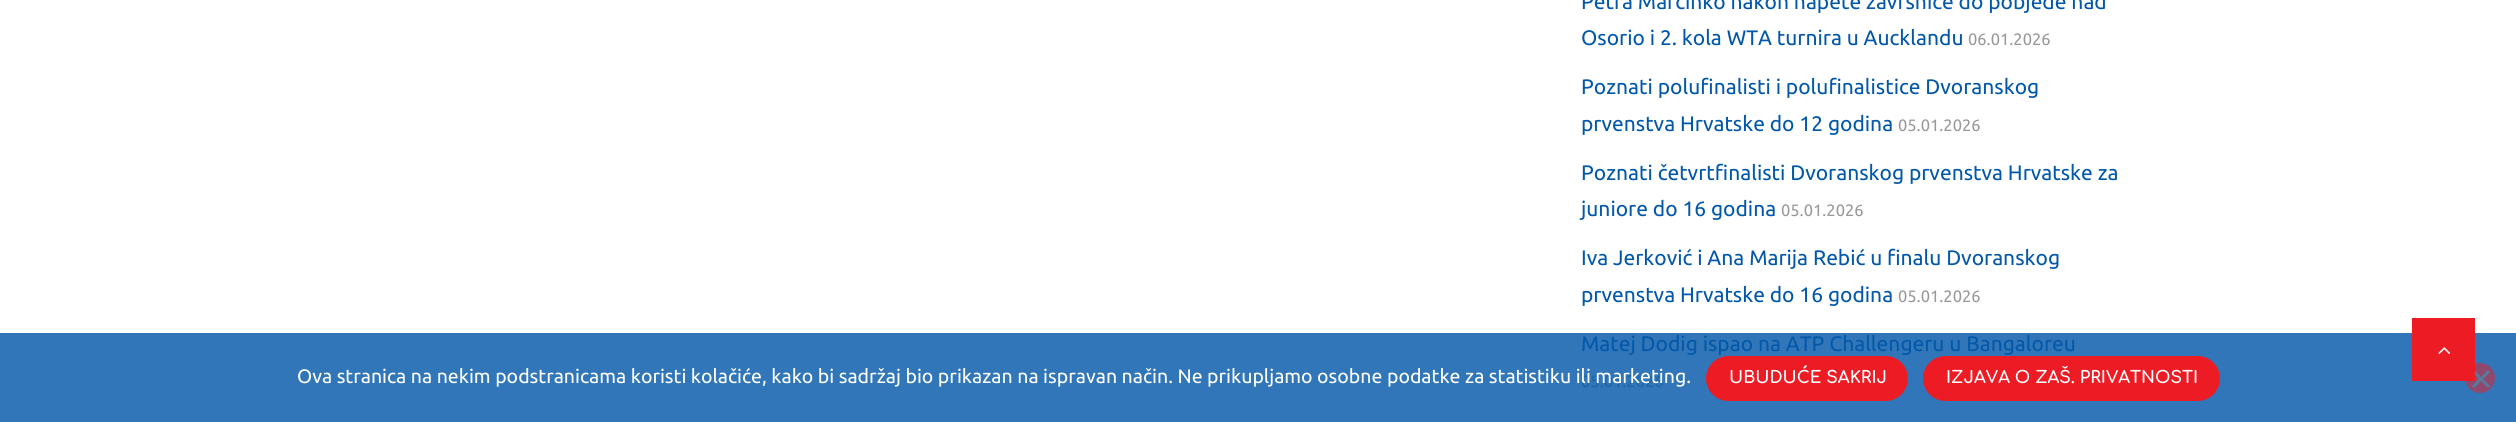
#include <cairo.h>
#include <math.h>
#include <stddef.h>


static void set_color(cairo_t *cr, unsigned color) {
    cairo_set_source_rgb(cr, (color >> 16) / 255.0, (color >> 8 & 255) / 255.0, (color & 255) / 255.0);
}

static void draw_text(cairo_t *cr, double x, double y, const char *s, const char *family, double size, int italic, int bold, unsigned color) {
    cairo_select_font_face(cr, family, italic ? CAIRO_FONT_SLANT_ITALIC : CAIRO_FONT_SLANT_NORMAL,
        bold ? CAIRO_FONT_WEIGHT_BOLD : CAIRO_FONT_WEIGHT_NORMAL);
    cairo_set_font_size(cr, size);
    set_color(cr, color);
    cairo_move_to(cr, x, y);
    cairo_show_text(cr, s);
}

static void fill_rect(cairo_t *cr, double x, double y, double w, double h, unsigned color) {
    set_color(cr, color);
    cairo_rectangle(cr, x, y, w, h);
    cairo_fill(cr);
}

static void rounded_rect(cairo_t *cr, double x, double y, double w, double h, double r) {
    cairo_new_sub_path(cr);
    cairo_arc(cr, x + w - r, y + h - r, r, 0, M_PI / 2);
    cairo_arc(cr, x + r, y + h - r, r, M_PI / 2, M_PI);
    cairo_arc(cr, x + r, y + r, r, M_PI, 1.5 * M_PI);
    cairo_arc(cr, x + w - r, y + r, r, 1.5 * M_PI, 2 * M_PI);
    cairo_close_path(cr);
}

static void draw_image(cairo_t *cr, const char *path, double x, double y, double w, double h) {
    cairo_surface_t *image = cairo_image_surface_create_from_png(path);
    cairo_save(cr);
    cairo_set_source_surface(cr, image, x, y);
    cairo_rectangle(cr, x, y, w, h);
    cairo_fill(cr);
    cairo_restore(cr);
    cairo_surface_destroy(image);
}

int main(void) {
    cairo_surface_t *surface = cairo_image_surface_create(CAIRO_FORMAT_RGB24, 2516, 422);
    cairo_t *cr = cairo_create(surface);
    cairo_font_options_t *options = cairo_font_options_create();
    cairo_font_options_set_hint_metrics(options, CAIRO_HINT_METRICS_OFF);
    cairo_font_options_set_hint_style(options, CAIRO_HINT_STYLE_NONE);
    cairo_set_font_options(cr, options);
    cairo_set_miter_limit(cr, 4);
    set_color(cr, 0xFFFFFF);
    cairo_paint(cr);
    fill_rect(cr, 0, 333, 2516, 89, 0x3076B8);
    draw_text(cr, 1581, 9, "Petra Marčinko nakon napete završnice do pobjede nad", "Ubuntu", 21, 0, 0, 0x0358A9);
    draw_text(cr, 1581, 45, "Osorio i 2. kola WTA turnira u Aucklandu", "Ubuntu", 21, 0, 0, 0x0358A9);
    draw_text(cr, 1968, 45, "06.01.2026", "Ubuntu", 16.5, 0, 0, 0x999999);
    draw_text(cr, 1581, 94, "Poznati polufinalisti i polufinalistice Dvoranskog", "Ubuntu", 21, 0, 0, 0x0358A9);
    draw_text(cr, 1581, 131, "prvenstva Hrvatske do 12 godina", "Ubuntu", 21, 0, 0, 0x0358A9);
    draw_text(cr, 1898, 131, "05.01.2026", "Ubuntu", 16.5, 0, 0, 0x999999);
    draw_text(cr, 1581, 180, "Poznati četvrtfinalisti Dvoranskog prvenstva Hrvatske za", "Ubuntu", 21, 0, 0, 0x0358A9);
    draw_text(cr, 1581, 216, "juniore do 16 godina", "Ubuntu", 21, 0, 0, 0x0358A9);
    draw_text(cr, 1781, 216, "05.01.2026", "Ubuntu", 16.5, 0, 0, 0x999999);
    draw_text(cr, 1581, 265, "Iva Jerković i Ana Marija Rebić u finalu Dvoranskog", "Ubuntu", 21, 0, 0, 0x0358A9);
    draw_text(cr, 1581, 302, "prvenstva Hrvatske do 16 godina", "Ubuntu", 21, 0, 0, 0x0358A9);
    draw_text(cr, 1898, 302, "05.01.2026", "Ubuntu", 16.5, 0, 0, 0x999999);
    draw_text(cr, 1581, 351, "Matej Dodig ispao na ATP Challengeru u Bangaloreu", "Ubuntu", 21, 0, 0, 0x0358A9);
    draw_text(cr, 1581, 387, "05.01.2026", "Ubuntu", 16.5, 0, 0, 0x1E64A6);
    set_color(cr, 0x8F496E);
    cairo_new_path(cr);
    cairo_arc(cr, 2480, 378, 15, 0, 2 * M_PI);
    cairo_fill(cr);
    set_color(cr, 0x587B9C);
    cairo_new_path(cr);
    cairo_move_to(cr, 2488, 370);
    cairo_line_to(cr, 2490, 372);
    cairo_line_to(cr, 2474, 388);
    cairo_line_to(cr, 2472, 386);
    cairo_close_path(cr);
    cairo_fill(cr);
    cairo_new_path(cr);
    cairo_move_to(cr, 2472, 372);
    cairo_line_to(cr, 2474, 370);
    cairo_line_to(cr, 2490, 386);
    cairo_line_to(cr, 2488, 388);
    cairo_close_path(cr);
    cairo_fill(cr);
    fill_rect(cr, 2412, 318, 63, 63, 0xED1B24);
    draw_image(cr, "assets/img1.png", 2438, 347, 12, 7);
    draw_text(cr, 297, 383, "Ova stranica na nekim podstranicama koristi kolačiće, kako bi sadržaj bio prikazan na ispravan način. Ne prikupljamo osobne podatke za statistiku ili marketing.", "Ubuntu", 19.5, 0, 0, 0xFFFFFF);
    set_color(cr, 0xED1B24);
    rounded_rect(cr, 1707.5, 357.5, 199, 42, 21);
    cairo_fill_preserve(cr);
    cairo_set_line_width(cr, 3);
    cairo_stroke(cr);
    draw_text(cr, 1729, 383, "UBUDUĆE SAKRIJ", "Comfortaa", 16.75, 0, 1, 0xFFFFFF);
    set_color(cr, 0xED1B24);
    rounded_rect(cr, 1924.5, 357.5, 294, 42, 21);
    cairo_fill_preserve(cr);
    cairo_stroke(cr);
    draw_text(cr, 1946, 383, "IZJAVA O ZAŠ. PRIVATNOSTI", "Comfortaa", 16.75, 0, 1, 0xFFFFFF);
    cairo_surface_write_to_png(surface, "output.png");
    cairo_font_options_destroy(options);
    cairo_destroy(cr);
    cairo_surface_destroy(surface);
    return 0;
}
